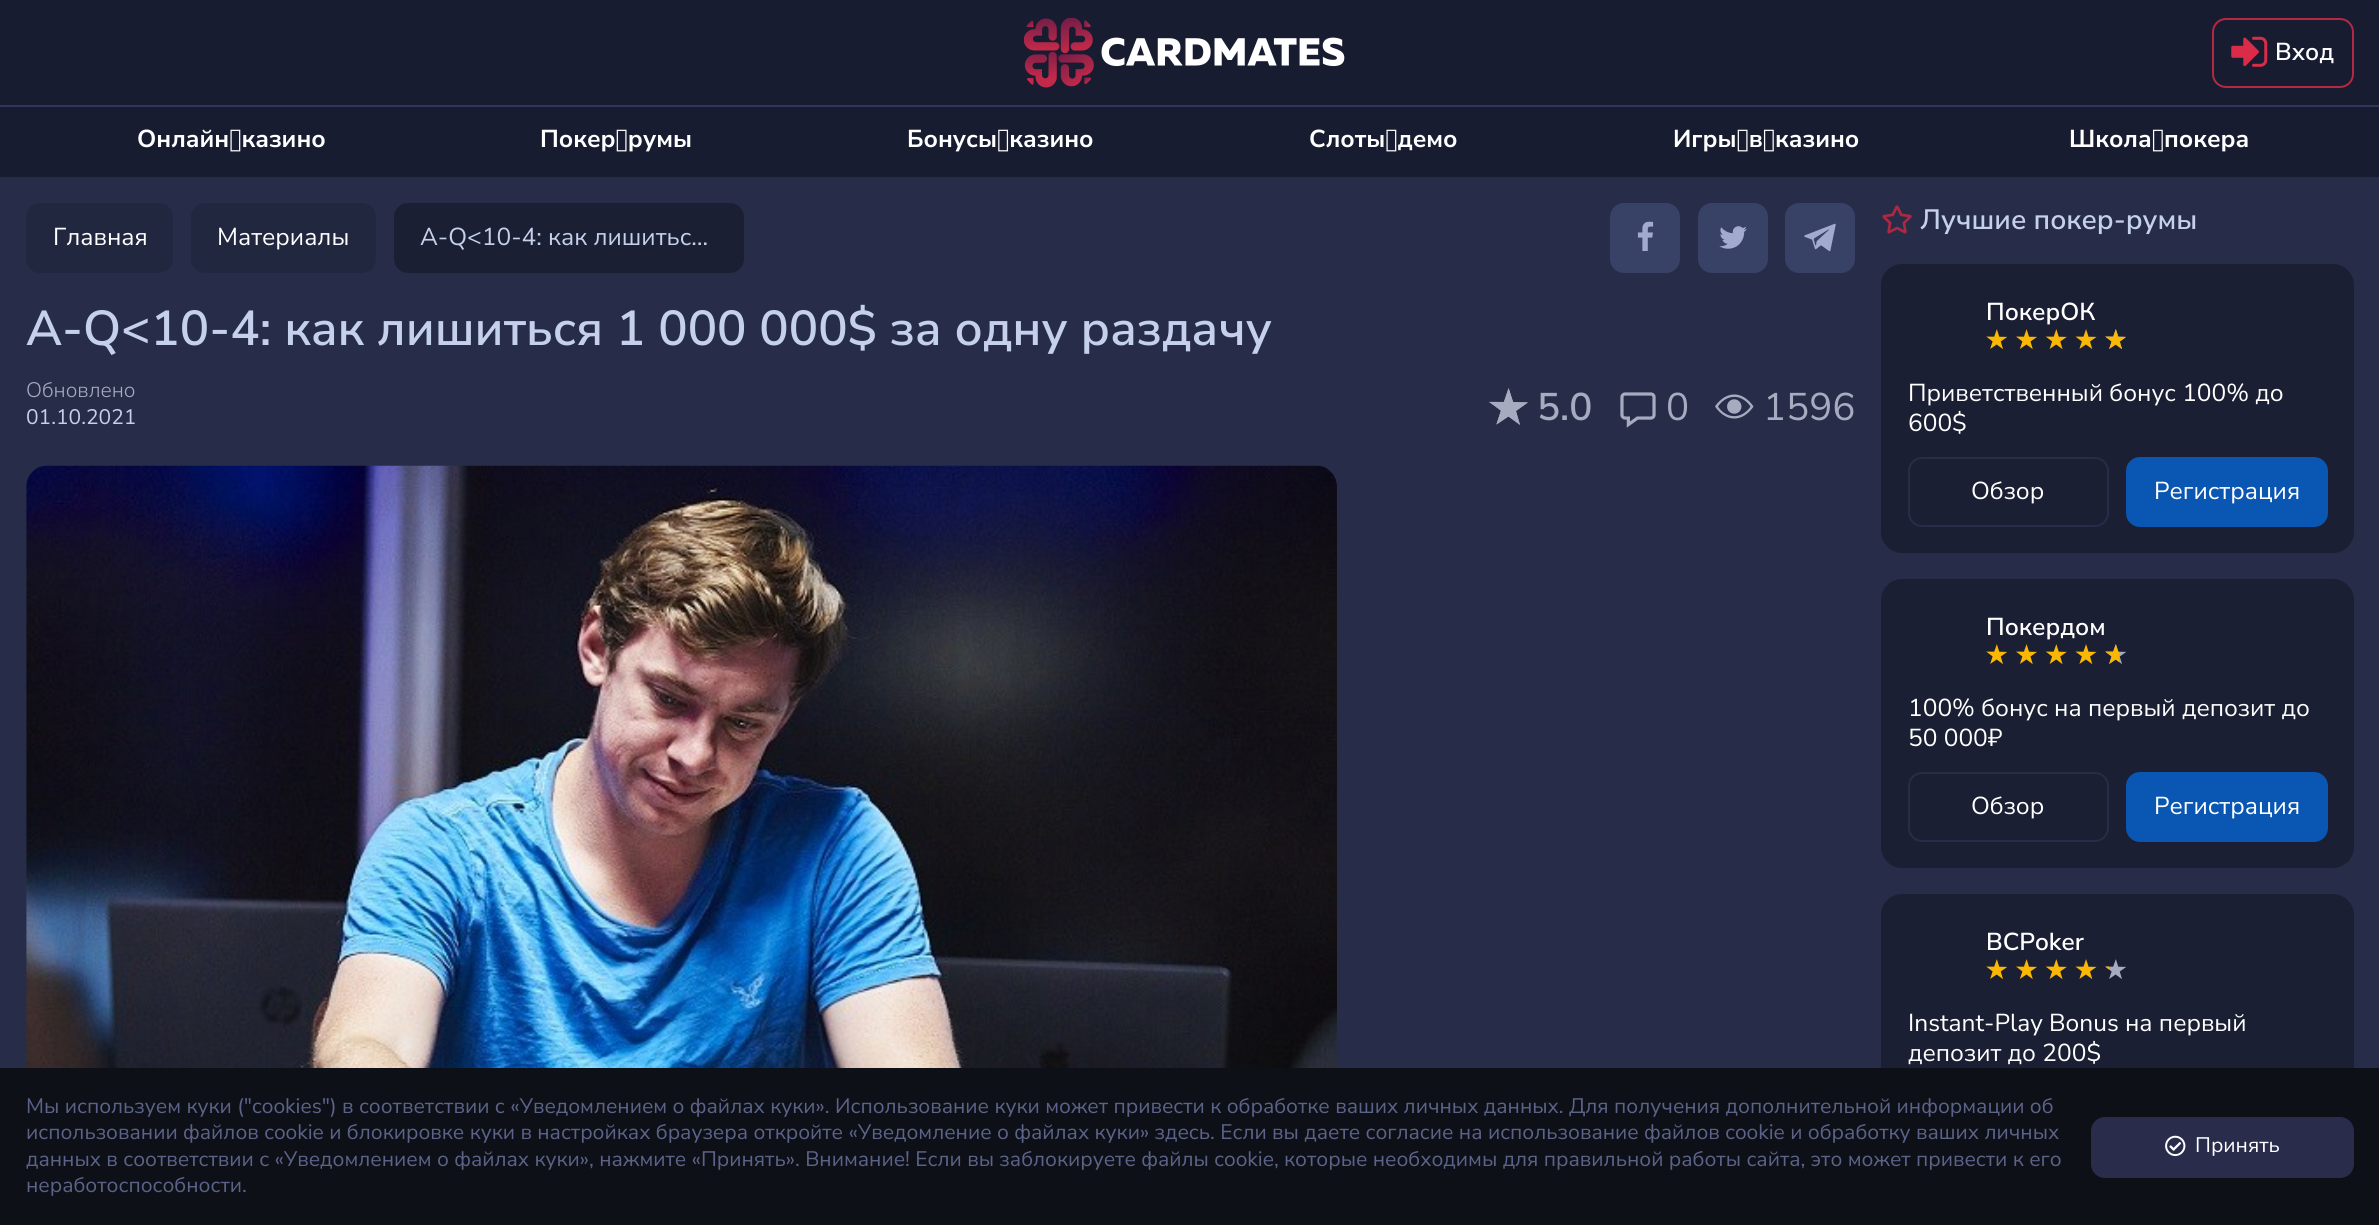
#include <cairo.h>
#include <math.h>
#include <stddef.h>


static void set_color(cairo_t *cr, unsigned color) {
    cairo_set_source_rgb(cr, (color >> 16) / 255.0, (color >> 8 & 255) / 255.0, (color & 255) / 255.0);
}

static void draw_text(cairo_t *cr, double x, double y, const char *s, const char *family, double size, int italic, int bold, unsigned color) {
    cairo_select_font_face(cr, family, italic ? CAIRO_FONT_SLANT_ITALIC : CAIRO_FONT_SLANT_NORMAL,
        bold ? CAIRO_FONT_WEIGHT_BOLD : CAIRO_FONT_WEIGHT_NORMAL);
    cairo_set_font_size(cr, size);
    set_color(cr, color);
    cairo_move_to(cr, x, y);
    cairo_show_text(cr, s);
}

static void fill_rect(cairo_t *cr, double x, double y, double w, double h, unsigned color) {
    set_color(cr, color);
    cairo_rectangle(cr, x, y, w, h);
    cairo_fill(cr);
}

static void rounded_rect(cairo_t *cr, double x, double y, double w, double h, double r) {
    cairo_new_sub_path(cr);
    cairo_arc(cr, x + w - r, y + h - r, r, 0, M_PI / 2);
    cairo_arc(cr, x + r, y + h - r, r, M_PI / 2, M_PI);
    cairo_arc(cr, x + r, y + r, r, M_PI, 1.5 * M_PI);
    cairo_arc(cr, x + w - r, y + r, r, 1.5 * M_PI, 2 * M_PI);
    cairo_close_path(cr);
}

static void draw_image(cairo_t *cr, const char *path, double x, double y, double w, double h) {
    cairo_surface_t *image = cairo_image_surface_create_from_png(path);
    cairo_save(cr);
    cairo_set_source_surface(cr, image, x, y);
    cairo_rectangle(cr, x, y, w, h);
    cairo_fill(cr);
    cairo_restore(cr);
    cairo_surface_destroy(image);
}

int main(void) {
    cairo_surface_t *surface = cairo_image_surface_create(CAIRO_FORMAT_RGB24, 2379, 1225);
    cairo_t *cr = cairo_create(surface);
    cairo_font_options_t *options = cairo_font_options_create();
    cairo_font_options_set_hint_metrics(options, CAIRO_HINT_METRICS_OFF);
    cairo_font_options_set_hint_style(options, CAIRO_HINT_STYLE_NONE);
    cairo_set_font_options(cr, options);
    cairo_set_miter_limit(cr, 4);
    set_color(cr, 0x272D49);
    cairo_paint(cr);
    fill_rect(cr, 0, 0, 2379, 177, 0x181C30);
    draw_image(cr, "assets/img1.png", 1024, 18, 321, 70);
    rounded_rect(cr, 2213, 19, 140, 68, 13);
    set_color(cr, 0xB32943);
    cairo_stroke(cr);
    draw_image(cr, "assets/img2.png", 2231, 36, 37, 31);
    draw_text(cr, 2275, 60, "Вход", "Nunito Sans SemiBold", 24.5, 0, 0, 0xFFFFFF);
    fill_rect(cr, 0, 105, 2379, 2, 0x303759);
    draw_text(cr, 137, 147, "Онлайн казино", "Nunito Sans", 24.5, 0, 1, 0xFFFFFF);
    draw_text(cr, 540, 147, "Покер румы", "Nunito Sans", 24.5, 0, 1, 0xFFFFFF);
    draw_text(cr, 907, 147, "Бонусы казино", "Nunito Sans", 24.5, 0, 1, 0xFFFFFF);
    draw_text(cr, 1309, 147, "Слоты демо", "Nunito Sans", 24.5, 0, 1, 0xFFFFFF);
    draw_text(cr, 1673, 147, "Игры в казино", "Nunito Sans", 24.5, 0, 1, 0xFFFFFF);
    draw_text(cr, 2069, 147, "Школа покера", "Nunito Sans", 24.5, 0, 1, 0xFFFFFF);
    set_color(cr, 0x222740);
    rounded_rect(cr, 26, 203, 147, 70, 14);
    cairo_fill(cr);
    draw_text(cr, 53, 245, "Главная", "Nunito Sans", 24.5, 0, 0, 0xFFFFFF);
    set_color(cr, 0x222740);
    rounded_rect(cr, 191, 203, 185, 70, 14);
    cairo_fill(cr);
    draw_text(cr, 217, 245, "Материалы", "Nunito Sans", 24.5, 0, 0, 0xFFFFFF);
    set_color(cr, 0x1B1F33);
    rounded_rect(cr, 394, 203, 350, 70, 14);
    cairo_fill(cr);
    draw_text(cr, 420, 245, "A-Q<10-4: как лишитьс…", "Nunito Sans", 24.5, 0, 0, 0xC5D0EC);
    set_color(cr, 0x384266);
    rounded_rect(cr, 1610, 203, 70, 70, 14);
    cairo_fill(cr);
    draw_image(cr, "assets/img3.png", 1637, 221, 17, 30);
    rounded_rect(cr, 1698, 203, 70, 70, 14);
    cairo_fill(cr);
    draw_image(cr, "assets/img4.png", 1719, 226, 28, 23);
    rounded_rect(cr, 1785, 203, 70, 70, 14);
    cairo_fill(cr);
    draw_image(cr, "assets/img5.png", 1804, 223, 32, 29);
    draw_text(cr, 26, 345, "A-Q<10-4: как лишиться 1 000 000$ за одну раздачу", "Nunito Sans SemiBold", 49, 0, 0, 0xC5D0EC);
    draw_text(cr, 26, 397, "Обновлено", "Nunito Sans Light", 21, 0, 0, 0xA6ABBF);
    draw_text(cr, 26, 424, "01.10.2021", "Nunito Sans", 21, 0, 0, 0xC5D0EC);
    draw_image(cr, "assets/img6.png", 1489, 388, 39, 37);
    set_color(cr, 0xA6ABBF);
    cairo_new_path(cr);
    cairo_move_to(cr, 1489, 402);
    cairo_line_to(cr, 1504, 402);
    cairo_line_to(cr, 1508.5, 388);
    cairo_line_to(cr, 1513, 402);
    cairo_line_to(cr, 1528, 402.5);
    cairo_line_to(cr, 1516, 411);
    cairo_line_to(cr, 1520, 425);
    cairo_line_to(cr, 1508.5, 416.5);
    cairo_line_to(cr, 1496.5, 424.5);
    cairo_line_to(cr, 1501, 410.5);
    cairo_close_path(cr);
    cairo_fill(cr);
    draw_text(cr, 1537, 420, "5.0", "Nunito Sans SemiBold", 38.5, 0, 0, 0xA6ABBF);
    draw_image(cr, "assets/img7.png", 1620, 392, 36, 36);
    draw_text(cr, 1666, 420, "0", "Nunito Sans", 38.5, 0, 0, 0xA6ABBF);
    draw_image(cr, "assets/img8.png", 1715, 394, 39, 25);
    draw_text(cr, 1763, 420, "1596", "Nunito Sans", 38.5, 0, 0, 0xA6ABBF);
    draw_image(cr, "assets/img9.png", 26, 465, 1311, 603);
    draw_image(cr, "assets/img10.png", 1882, 205, 30, 29);
    draw_text(cr, 1920, 229, "Лучшие покер-румы", "Nunito Sans SemiBold", 28, 0, 0, 0xC5D0EC);
    set_color(cr, 0x1B1F33);
    rounded_rect(cr, 1881, 264, 473, 289, 21);
    cairo_fill(cr);
    draw_text(cr, 1986, 320, "ПокерОК", "Nunito Sans SemiBold", 24.5, 0, 0, 0xFFFFFF);
    draw_image(cr, "assets/img11.png", 1986, 329, 21, 20);
    draw_image(cr, "assets/img12.png", 2016, 329, 21, 21);
    draw_image(cr, "assets/img13.png", 2045, 329, 22, 21);
    draw_image(cr, "assets/img14.png", 2075, 329, 22, 21);
    draw_image(cr, "assets/img15.png", 2105, 329, 21, 20);
    draw_image(cr, "assets/img16.png", 2105, 329, 20, 20);
    draw_text(cr, 1908, 401, "Приветственный бонус 100% до", "Nunito Sans", 24.5, 0, 0, 0xFFFFFF);
    draw_text(cr, 1908, 431, "600$", "Nunito Sans", 24.5, 0, 0, 0xFFFFFF);
    rounded_rect(cr, 1909, 458, 199, 68, 13);
    set_color(cr, 0x272D49);
    cairo_stroke(cr);
    draw_text(cr, 1971, 499, "Обзор", "Nunito Sans", 24.5, 0, 0, 0xFFFFFF);
    set_color(cr, 0x0A56B3);
    rounded_rect(cr, 2126, 457, 202, 70, 14);
    cairo_fill(cr);
    draw_text(cr, 2154, 499, "Регистрация", "Nunito Sans", 24.5, 0, 0, 0xFFFFFF);
    set_color(cr, 0x1B1F33);
    rounded_rect(cr, 1881, 579, 473, 289, 21);
    cairo_fill(cr);
    draw_text(cr, 1986, 635, "Покердом", "Nunito Sans SemiBold", 24.5, 0, 0, 0xFFFFFF);
    draw_image(cr, "assets/img11.png", 1986, 644, 21, 20);
    draw_image(cr, "assets/img12.png", 2016, 644, 21, 21);
    draw_image(cr, "assets/img13.png", 2045, 644, 22, 21);
    draw_image(cr, "assets/img14.png", 2075, 644, 22, 21);
    draw_image(cr, "assets/img15.png", 2105, 644, 21, 20);
    draw_image(cr, "assets/img17.png", 2105, 644, 14, 20);
    draw_text(cr, 1908, 716, "100% бонус на первый депозит до", "Nunito Sans", 24.5, 0, 0, 0xFFFFFF);
    draw_text(cr, 1908, 746, "50 000₽", "Nunito Sans", 24.5, 0, 0, 0xFFFFFF);
    rounded_rect(cr, 1909, 773, 199, 68, 13);
    set_color(cr, 0x272D49);
    cairo_stroke(cr);
    draw_text(cr, 1971, 814, "Обзор", "Nunito Sans", 24.5, 0, 0, 0xFFFFFF);
    set_color(cr, 0x0A56B3);
    rounded_rect(cr, 2126, 772, 202, 70, 14);
    cairo_fill(cr);
    draw_text(cr, 2154, 814, "Регистрация", "Nunito Sans", 24.5, 0, 0, 0xFFFFFF);
    set_color(cr, 0x1B1F33);
    rounded_rect(cr, 1881, 894, 473, 289, 21);
    cairo_fill(cr);
    draw_text(cr, 1986, 950, "BCPoker", "Nunito Sans SemiBold", 24.5, 0, 0, 0xFFFFFF);
    draw_image(cr, "assets/img11.png", 1986, 959, 21, 20);
    draw_image(cr, "assets/img12.png", 2016, 959, 21, 21);
    draw_image(cr, "assets/img13.png", 2045, 959, 22, 21);
    draw_image(cr, "assets/img14.png", 2075, 959, 22, 21);
    draw_image(cr, "assets/img15.png", 2105, 959, 21, 20);
    draw_image(cr, "assets/img18.png", 2105, 966, 4, 4);
    draw_text(cr, 1908, 1031, "Instant-Play Bonus на первый", "Nunito Sans", 24.5, 0, 0, 0xFFFFFF);
    draw_text(cr, 1908, 1061, "депозит до 200$", "Nunito Sans", 24.5, 0, 0, 0xFFFFFF);
    fill_rect(cr, 0, 1068, 2379, 157, 0x0E1018);
    draw_text(cr, 26, 1113, "Мы используем куки (\"cookies\") в соответствии с «Уведомлением о файлах куки». Использование куки может привести к обработке ваших личных данных. Для получения дополнительной информации об", "Nunito Sans", 21, 0, 0, 0x5B6388);
    draw_text(cr, 26, 1139, "использовании файлов cookie и блокировке куки в настройках браузера откройте «Уведомление о файлах куки» здесь. Если вы даете согласие на использование файлов cookie и обработку ваших личных", "Nunito Sans", 21, 0, 0, 0x5B6388);
    draw_text(cr, 26, 1166, "данных в соответствии с «Уведомлением о файлах куки», нажмите «Принять». Внимание! Если вы заблокируете файлы cookie, которые необходимы для правильной работы сайта, это может привести к его", "Nunito Sans", 21, 0, 0, 0x5B6388);
    draw_text(cr, 26, 1192, "неработоспособности.", "Nunito Sans", 21, 0, 0, 0x5B6388);
    set_color(cr, 0x292D4B);
    rounded_rect(cr, 2091, 1117, 263, 61, 14);
    cairo_fill(cr);
    draw_image(cr, "assets/img19.png", 2165, 1135, 21, 22);
    draw_text(cr, 2195, 1152, "Принять", "Nunito Sans", 21, 0, 0, 0xFFFFFF);
    cairo_surface_write_to_png(surface, "output.png");
    cairo_font_options_destroy(options);
    cairo_destroy(cr);
    cairo_surface_destroy(surface);
    return 0;
}
